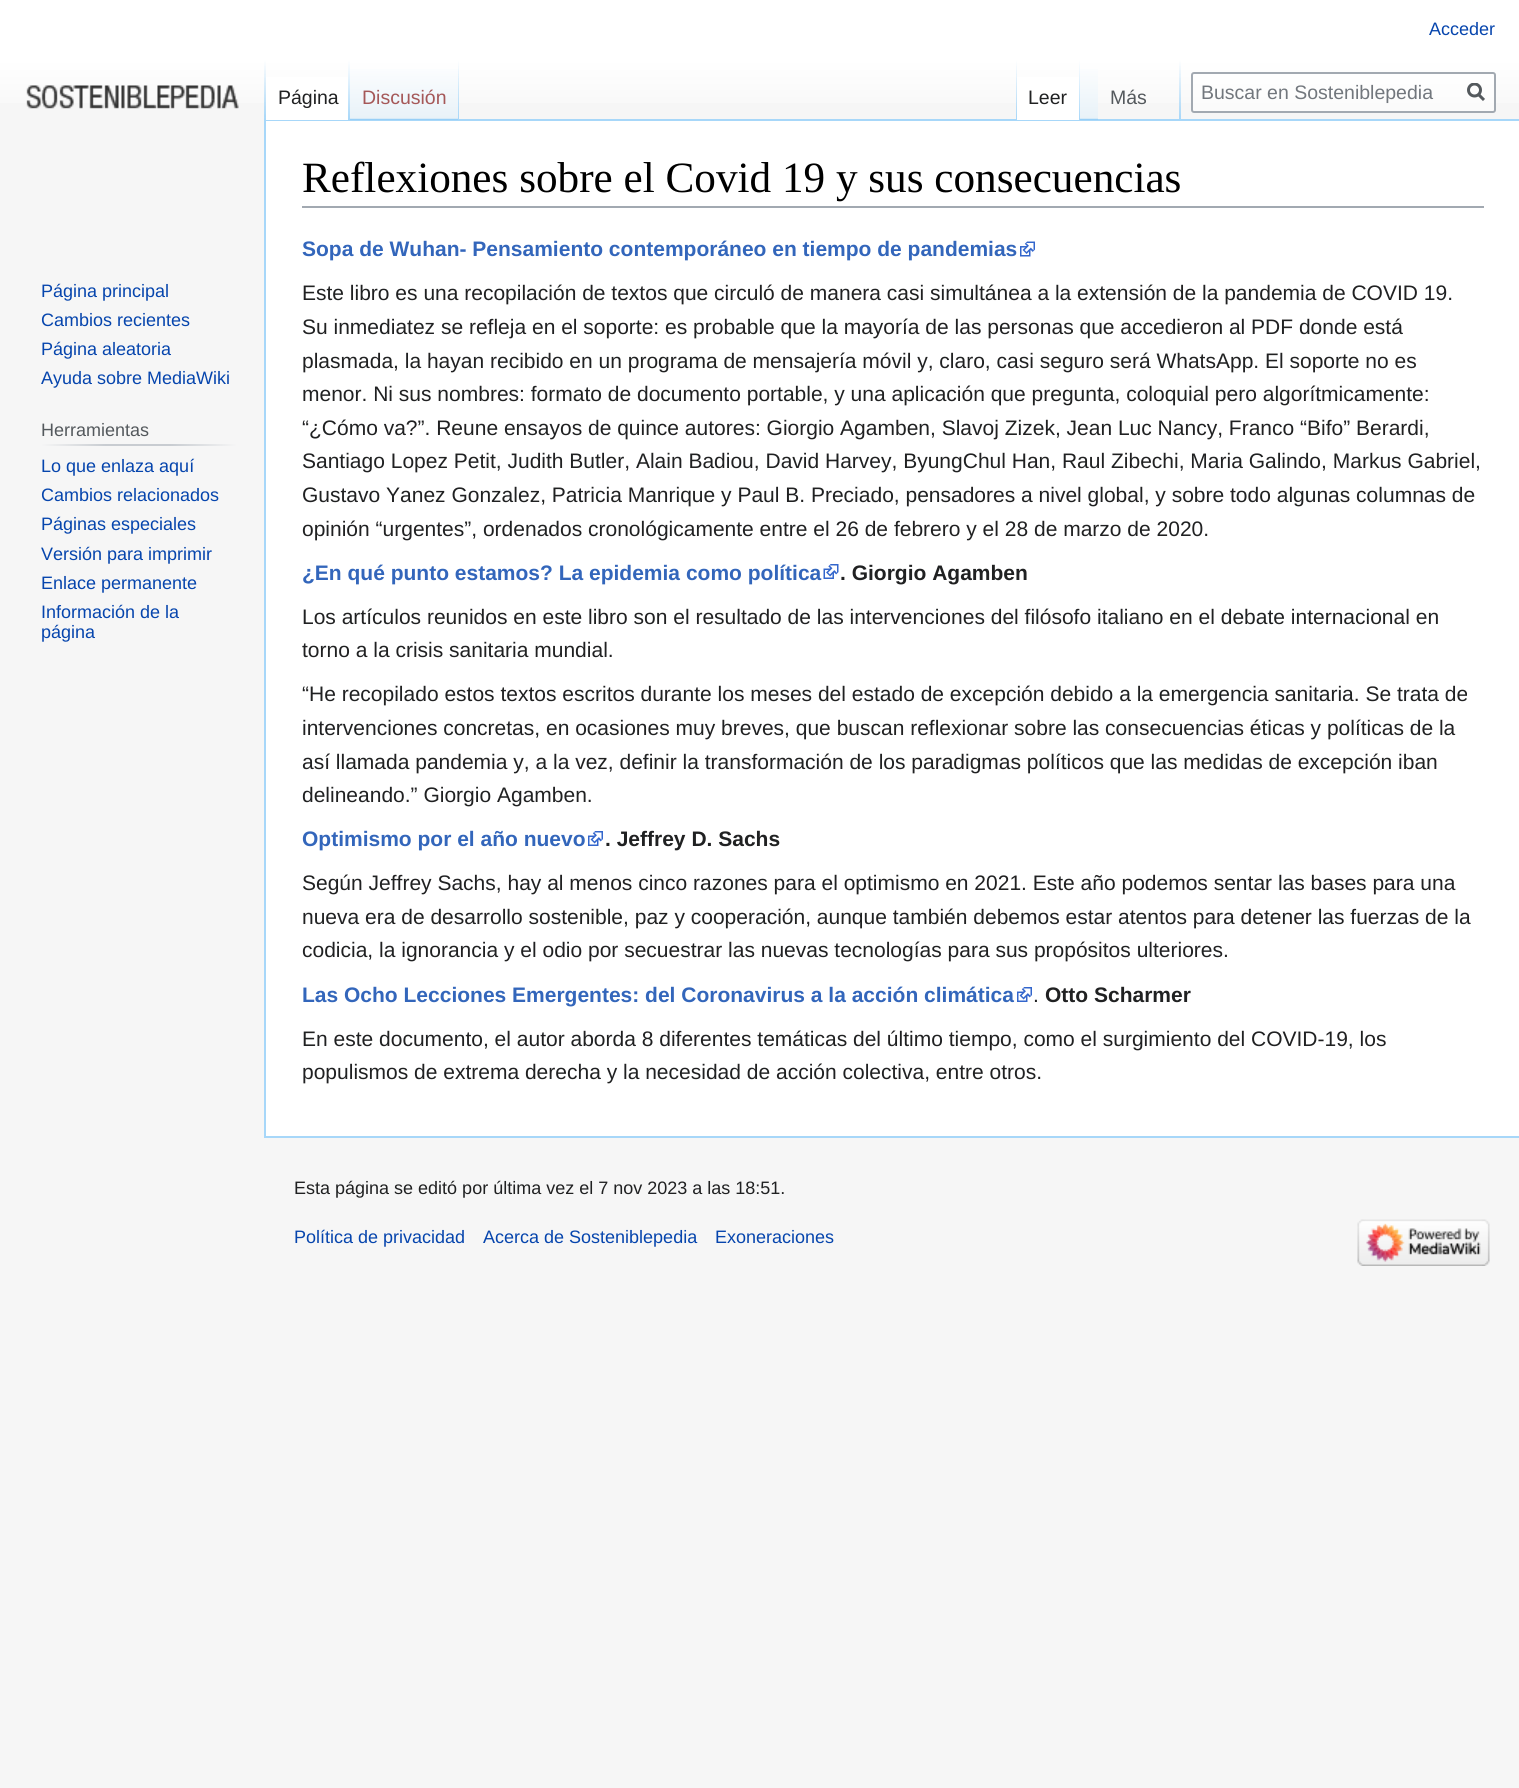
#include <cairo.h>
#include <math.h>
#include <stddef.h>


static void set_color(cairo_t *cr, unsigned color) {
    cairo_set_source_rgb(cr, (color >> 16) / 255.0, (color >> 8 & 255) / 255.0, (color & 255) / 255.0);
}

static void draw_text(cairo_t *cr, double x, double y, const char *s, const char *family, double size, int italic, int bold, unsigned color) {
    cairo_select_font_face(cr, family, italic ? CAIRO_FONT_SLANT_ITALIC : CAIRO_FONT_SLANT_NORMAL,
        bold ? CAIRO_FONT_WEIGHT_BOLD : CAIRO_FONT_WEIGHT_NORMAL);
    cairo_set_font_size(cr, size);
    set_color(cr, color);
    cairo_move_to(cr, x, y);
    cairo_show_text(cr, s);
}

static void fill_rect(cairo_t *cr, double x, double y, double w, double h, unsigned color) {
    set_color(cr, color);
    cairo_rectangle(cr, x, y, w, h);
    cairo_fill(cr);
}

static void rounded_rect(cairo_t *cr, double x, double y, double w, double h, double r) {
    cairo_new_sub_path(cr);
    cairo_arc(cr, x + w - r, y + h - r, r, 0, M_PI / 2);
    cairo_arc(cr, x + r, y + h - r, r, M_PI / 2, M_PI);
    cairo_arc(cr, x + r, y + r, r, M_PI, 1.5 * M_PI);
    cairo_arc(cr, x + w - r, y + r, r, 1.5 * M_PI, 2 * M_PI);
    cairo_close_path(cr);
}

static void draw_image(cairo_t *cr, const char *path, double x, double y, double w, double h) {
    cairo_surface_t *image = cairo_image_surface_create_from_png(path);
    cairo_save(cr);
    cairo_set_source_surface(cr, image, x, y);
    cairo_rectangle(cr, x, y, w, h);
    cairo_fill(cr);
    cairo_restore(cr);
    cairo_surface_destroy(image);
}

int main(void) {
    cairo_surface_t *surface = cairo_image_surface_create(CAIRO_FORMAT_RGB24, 1519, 1788);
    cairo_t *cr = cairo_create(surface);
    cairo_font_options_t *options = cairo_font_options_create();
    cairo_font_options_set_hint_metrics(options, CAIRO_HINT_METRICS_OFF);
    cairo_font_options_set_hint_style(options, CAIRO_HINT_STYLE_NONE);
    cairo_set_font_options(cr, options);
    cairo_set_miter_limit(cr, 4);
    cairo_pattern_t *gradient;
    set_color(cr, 0xF6F6F6);
    cairo_paint(cr);
    gradient = cairo_pattern_create_linear(760, 0, 760, 120);
    cairo_pattern_add_color_stop_rgba(gradient, 0.5, 1, 1, 1, 1);
    cairo_pattern_add_color_stop_rgba(gradient, 1, 0.965, 0.965, 0.965, 1);
    cairo_set_source(cr, gradient);
    cairo_pattern_destroy(gradient);
    cairo_rectangle(cr, 0, 0, 1519, 103);
    cairo_fill(cr);
    draw_text(cr, 1429, 35, "Acceder", "Liberation Sans", 18, 0, 0, 0x0645AD);
    fill_rect(cr, 264, 119, 1255, 2, 0xA7D7F9);
    fill_rect(cr, 264, 1136, 1255, 2, 0xA7D7F9);
    fill_rect(cr, 264, 119, 2, 1018, 0xA7D7F9);
    gradient = cairo_pattern_create_linear(265, 60, 265, 120);
    cairo_pattern_add_color_stop_rgba(gradient, 0, 0.655, 0.843, 0.976, 0);
    cairo_pattern_add_color_stop_rgba(gradient, 1, 0.655, 0.843, 0.976, 1);
    cairo_set_source(cr, gradient);
    cairo_pattern_destroy(gradient);
    cairo_rectangle(cr, 264, 60, 2, 60);
    cairo_fill(cr);
    fill_rect(cr, 266, 77, 82, 43, 0xFFFFFF);
    gradient = cairo_pattern_create_linear(349, 60, 349, 120);
    cairo_pattern_add_color_stop_rgba(gradient, 0, 1, 1, 1, 1);
    cairo_pattern_add_color_stop_rgba(gradient, 1, 0.655, 0.843, 0.976, 1);
    cairo_set_source(cr, gradient);
    cairo_pattern_destroy(gradient);
    cairo_rectangle(cr, 348, 60, 2, 60);
    cairo_fill(cr);
    draw_text(cr, 278, 104, "Página", "Liberation Sans", 19.5, 0, 0, 0x202122);
    gradient = cairo_pattern_create_linear(404, 120, 404, 60);
    cairo_pattern_add_color_stop_rgba(gradient, 0, 0.467, 0.757, 0.965, 1);
    cairo_pattern_add_color_stop_rgba(gradient, 0.03, 0.91, 0.949, 0.973, 1);
    cairo_pattern_add_color_stop_rgba(gradient, 1, 1, 1, 1, 1);
    cairo_set_source(cr, gradient);
    cairo_pattern_destroy(gradient);
    cairo_rectangle(cr, 350, 69, 109, 51);
    cairo_fill(cr);
    gradient = cairo_pattern_create_linear(458, 60, 458, 120);
    cairo_pattern_add_color_stop_rgba(gradient, 0, 0.655, 0.843, 0.976, 0);
    cairo_pattern_add_color_stop_rgba(gradient, 1, 0.655, 0.843, 0.976, 1);
    cairo_set_source(cr, gradient);
    cairo_pattern_destroy(gradient);
    cairo_rectangle(cr, 458, 60, 1, 60);
    cairo_fill(cr);
    draw_text(cr, 362, 104, "Discusión", "Liberation Sans", 19.5, 0, 0, 0xA55858);
    gradient = cairo_pattern_create_linear(1016, 60, 1016, 120);
    cairo_pattern_add_color_stop_rgba(gradient, 0, 0.655, 0.843, 0.976, 0);
    cairo_pattern_add_color_stop_rgba(gradient, 1, 0.655, 0.843, 0.976, 1);
    cairo_set_source(cr, gradient);
    cairo_pattern_destroy(gradient);
    cairo_rectangle(cr, 1016, 60, 1, 60);
    cairo_fill(cr);
    fill_rect(cr, 1017, 77, 62, 43, 0xFFFFFF);
    gradient = cairo_pattern_create_linear(1079, 60, 1079, 120);
    cairo_pattern_add_color_stop_rgba(gradient, 0, 1, 1, 1, 1);
    cairo_pattern_add_color_stop_rgba(gradient, 1, 0.655, 0.843, 0.976, 1);
    cairo_set_source(cr, gradient);
    cairo_pattern_destroy(gradient);
    cairo_rectangle(cr, 1079, 60, 1, 60);
    cairo_fill(cr);
    draw_text(cr, 1028, 104, "Leer", "Liberation Sans", 19.5, 0, 0, 0x202122);
    gradient = cairo_pattern_create_linear(1089, 120, 1089, 60);
    cairo_pattern_add_color_stop_rgba(gradient, 0, 0.467, 0.757, 0.965, 1);
    cairo_pattern_add_color_stop_rgba(gradient, 0.03, 0.91, 0.949, 0.973, 1);
    cairo_pattern_add_color_stop_rgba(gradient, 1, 1, 1, 1, 1);
    cairo_set_source(cr, gradient);
    cairo_pattern_destroy(gradient);
    cairo_rectangle(cr, 1080, 69, 18, 51);
    cairo_fill(cr);
    gradient = cairo_pattern_create_linear(1180, 60, 1180, 120);
    cairo_pattern_add_color_stop_rgba(gradient, 0, 0.655, 0.843, 0.976, 0);
    cairo_pattern_add_color_stop_rgba(gradient, 1, 0.655, 0.843, 0.976, 1);
    cairo_set_source(cr, gradient);
    cairo_pattern_destroy(gradient);
    cairo_rectangle(cr, 1179, 60, 2, 60);
    cairo_fill(cr);
    draw_text(cr, 1110, 104, "Más", "Liberation Sans", 19.5, 0, 0, 0x54595D);
    cairo_set_source_rgba(cr, 1, 1, 1, 0.5);
    rounded_rect(cr, 1192, 73, 303, 39, 2);
    cairo_fill_preserve(cr);
    set_color(cr, 0xA2A9B1);
    cairo_stroke(cr);
    draw_text(cr, 1201, 99, "Buscar en Sosteniblepedia", "Liberation Sans", 19.5, 0, 0, 0x72777D);
    cairo_new_path(cr);
    cairo_move_to(cr, 1484, 100);
    cairo_line_to(cr, 1478, 94);
    set_color(cr, 0x54595D);
    cairo_set_line_width(cr, 3);
    cairo_stroke(cr);
    cairo_save(cr);
    cairo_rectangle(cr, 1467, 83, 18, 19);
    cairo_clip(cr);
    cairo_arc(cr, 1474.5, 90, 6, 0, 2 * M_PI);
    cairo_stroke(cr);
    cairo_restore(cr);
    draw_image(cr, "assets/img1.png", 26, 85, 213, 24);
    draw_text(cr, 41, 297, "Página principal", "Liberation Sans", 18, 0, 0, 0x0645AD);
    draw_text(cr, 41, 326, "Cambios recientes", "Liberation Sans", 18, 0, 0, 0x0645AD);
    draw_text(cr, 41, 355, "Página aleatoria", "Liberation Sans", 18, 0, 0, 0x0645AD);
    draw_text(cr, 41, 384, "Ayuda sobre MediaWiki", "Liberation Sans", 18, 0, 0, 0x0645AD);
    gradient = cairo_pattern_create_linear(41, 445, 237, 445);
    cairo_pattern_add_color_stop_rgba(gradient, 0, 0.965, 0.965, 0.965, 1);
    cairo_pattern_add_color_stop_rgba(gradient, 0.33, 0.784, 0.8, 0.82, 1);
    cairo_pattern_add_color_stop_rgba(gradient, 0.66, 0.784, 0.8, 0.82, 1);
    cairo_pattern_add_color_stop_rgba(gradient, 1, 0.965, 0.965, 0.965, 1);
    cairo_set_source(cr, gradient);
    cairo_pattern_destroy(gradient);
    cairo_rectangle(cr, 41, 444, 196, 2);
    cairo_fill(cr);
    draw_text(cr, 41, 436, "Herramientas", "Liberation Sans", 18, 0, 0, 0x54595D);
    draw_text(cr, 41, 472, "Lo que enlaza aquí", "Liberation Sans", 18, 0, 0, 0x0645AD);
    draw_text(cr, 41, 501, "Cambios relacionados", "Liberation Sans", 18, 0, 0, 0x0645AD);
    draw_text(cr, 41, 530, "Páginas especiales", "Liberation Sans", 18, 0, 0, 0x0645AD);
    draw_text(cr, 41, 560, "Versión para imprimir", "Liberation Sans", 18, 0, 0, 0x0645AD);
    draw_text(cr, 41, 589, "Enlace permanente", "Liberation Sans", 18, 0, 0, 0x0645AD);
    draw_text(cr, 41, 618, "Información de la", "Liberation Sans", 18, 0, 0, 0x0645AD);
    draw_text(cr, 41, 638, "página", "Liberation Sans", 18, 0, 0, 0x0645AD);
    fill_rect(cr, 266, 121, 1253, 1015, 0xFFFFFF);
    fill_rect(cr, 302, 206, 1182, 2, 0xA2A9B1);
    draw_text(cr, 302, 192, "Reflexiones sobre el Covid 19 y sus consecuencias", "Liberation Serif", 43.2, 0, 0, 0x000000);
    draw_text(cr, 302, 256, "Sopa de Wuhan- Pensamiento contemporáneo en tiempo de pandemias", "Liberation Sans", 21, 0, 1, 0x3366BB);
    draw_image(cr, "assets/img2.png", 1020, 241, 15, 16);
    draw_text(cr, 302, 300, "Este libro es una recopilación de textos que circuló de manera casi simultánea a la extensión de la pandemia de COVID 19.", "Liberation Sans", 21, 0, 0, 0x202122);
    draw_text(cr, 302, 334, "Su inmediatez se refleja en el soporte: es probable que la mayoría de las personas que accedieron al PDF donde está", "Liberation Sans", 21, 0, 0, 0x202122);
    draw_text(cr, 302, 368, "plasmada, la hayan recibido en un programa de mensajería móvil y, claro, casi seguro será WhatsApp. El soporte no es", "Liberation Sans", 21, 0, 0, 0x202122);
    draw_text(cr, 302, 401, "menor. Ni sus nombres: formato de documento portable, y una aplicación que pregunta, coloquial pero algorítmicamente:", "Liberation Sans", 21, 0, 0, 0x202122);
    draw_text(cr, 302, 435, "“¿Cómo va?”. Reune ensayos de quince autores: Giorgio Agamben, Slavoj Zizek, Jean Luc Nancy, Franco “Bifo” Berardi,", "Liberation Sans", 21, 0, 0, 0x202122);
    draw_text(cr, 302, 468, "Santiago Lopez Petit, Judith Butler, Alain Badiou, David Harvey, ByungChul Han, Raul Zibechi, Maria Galindo, Markus Gabriel,", "Liberation Sans", 21, 0, 0, 0x202122);
    draw_text(cr, 302, 502, "Gustavo Yanez Gonzalez, Patricia Manrique y Paul B. Preciado, pensadores a nivel global, y sobre todo algunas columnas de", "Liberation Sans", 21, 0, 0, 0x202122);
    draw_text(cr, 302, 536, "opinión “urgentes”, ordenados cronológicamente entre el 26 de febrero y el 28 de marzo de 2020.", "Liberation Sans", 21, 0, 0, 0x202122);
    draw_text(cr, 302, 580, "¿En qué punto estamos? La epidemia como política", "Liberation Sans", 21, 0, 1, 0x3366BB);
    draw_image(cr, "assets/img3.png", 823, 564, 16, 15);
    draw_text(cr, 840, 580, ". Giorgio Agamben", "Liberation Sans", 21, 0, 1, 0x202122);
    draw_text(cr, 302, 624, "Los artículos reunidos en este libro son el resultado de las intervenciones del filósofo italiano en el debate internacional en", "Liberation Sans", 21, 0, 0, 0x202122);
    draw_text(cr, 302, 657, "torno a la crisis sanitaria mundial.", "Liberation Sans", 21, 0, 0, 0x202122);
    draw_text(cr, 302, 701, "“He recopilado estos textos escritos durante los meses del estado de excepción debido a la emergencia sanitaria. Se trata de", "Liberation Sans", 21, 0, 0, 0x202122);
    draw_text(cr, 302, 735, "intervenciones concretas, en ocasiones muy breves, que buscan reflexionar sobre las consecuencias éticas y políticas de la", "Liberation Sans", 21, 0, 0, 0x202122);
    draw_text(cr, 302, 769, "así llamada pandemia y, a la vez, definir la transformación de los paradigmas políticos que las medidas de excepción iban", "Liberation Sans", 21, 0, 0, 0x202122);
    draw_text(cr, 302, 802, "delineando.” Giorgio Agamben.", "Liberation Sans", 21, 0, 0, 0x202122);
    draw_text(cr, 302, 846, "Optimismo por el año nuevo", "Liberation Sans", 21, 0, 1, 0x3366BB);
    draw_image(cr, "assets/img4.png", 588, 831, 15, 15);
    draw_text(cr, 605, 846, ". Jeffrey D. Sachs", "Liberation Sans", 21, 0, 1, 0x202122);
    draw_text(cr, 302, 890, "Según Jeffrey Sachs, hay al menos cinco razones para el optimismo en 2021. Este año podemos sentar las bases para una", "Liberation Sans", 21, 0, 0, 0x202122);
    draw_text(cr, 302, 924, "nueva era de desarrollo sostenible, paz y cooperación, aunque también debemos estar atentos para detener las fuerzas de la", "Liberation Sans", 21, 0, 0, 0x202122);
    draw_text(cr, 302, 957, "codicia, la ignorancia y el odio por secuestrar las nuevas tecnologías para sus propósitos ulteriores.", "Liberation Sans", 21, 0, 0, 0x202122);
    draw_text(cr, 302, 1002, "Las Ocho Lecciones Emergentes: del Coronavirus a la acción climática", "Liberation Sans", 21, 0, 1, 0x3366BB);
    draw_image(cr, "assets/img4.png", 1017, 987, 15, 15);
    draw_text(cr, 1033, 1002, ".", "Liberation Sans", 21, 0, 0, 0x202122);
    draw_text(cr, 1045, 1002, "Otto Scharmer", "Liberation Sans", 21, 0, 1, 0x202122);
    draw_text(cr, 302, 1046, "En este documento, el autor aborda 8 diferentes temáticas del último tiempo, como el surgimiento del COVID-19, los", "Liberation Sans", 21, 0, 0, 0x202122);
    draw_text(cr, 302, 1079, "populismos de extrema derecha y la necesidad de acción colectiva, entre otros.", "Liberation Sans", 21, 0, 0, 0x202122);
    draw_text(cr, 294, 1194, "Esta página se editó por última vez el 7 nov 2023 a las 18:51.", "Liberation Sans", 18, 0, 0, 0x202122);
    draw_text(cr, 294, 1243, "Política de privacidad", "Liberation Sans", 18, 0, 0, 0x0645AD);
    draw_text(cr, 483, 1243, "Acerca de Sosteniblepedia", "Liberation Sans", 18, 0, 0, 0x0645AD);
    draw_text(cr, 715, 1243, "Exoneraciones", "Liberation Sans", 18, 0, 0, 0x0645AD);
    draw_image(cr, "assets/img5.png", 1357, 1219, 133, 47);
    cairo_surface_write_to_png(surface, "output.png");
    cairo_font_options_destroy(options);
    cairo_destroy(cr);
    cairo_surface_destroy(surface);
    return 0;
}
